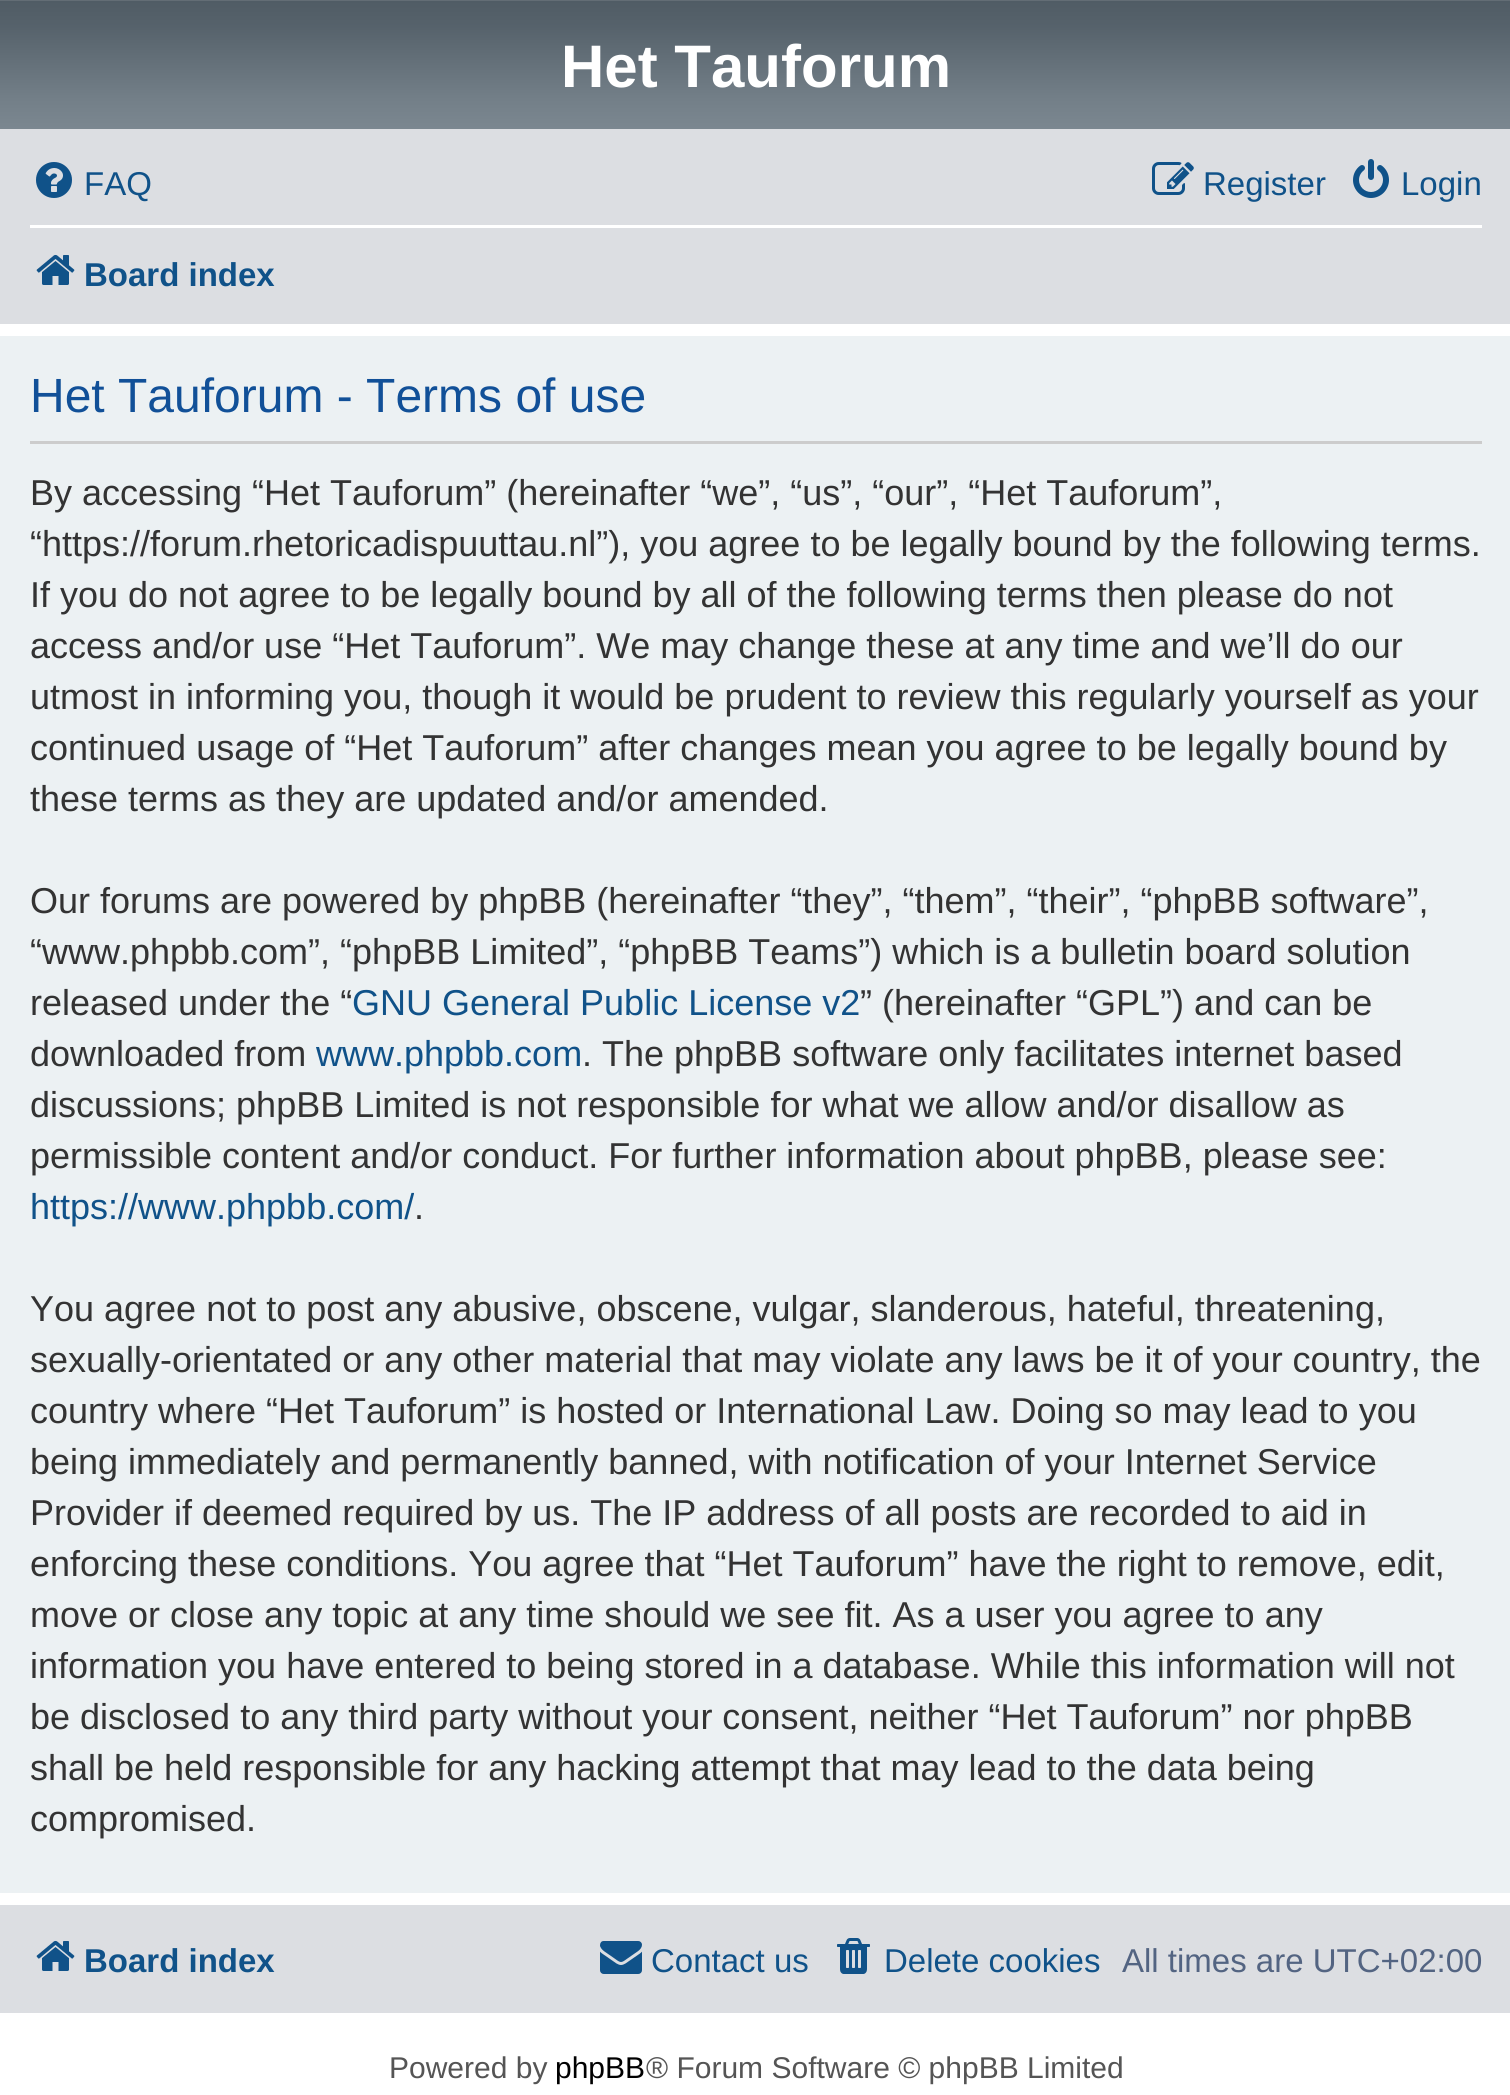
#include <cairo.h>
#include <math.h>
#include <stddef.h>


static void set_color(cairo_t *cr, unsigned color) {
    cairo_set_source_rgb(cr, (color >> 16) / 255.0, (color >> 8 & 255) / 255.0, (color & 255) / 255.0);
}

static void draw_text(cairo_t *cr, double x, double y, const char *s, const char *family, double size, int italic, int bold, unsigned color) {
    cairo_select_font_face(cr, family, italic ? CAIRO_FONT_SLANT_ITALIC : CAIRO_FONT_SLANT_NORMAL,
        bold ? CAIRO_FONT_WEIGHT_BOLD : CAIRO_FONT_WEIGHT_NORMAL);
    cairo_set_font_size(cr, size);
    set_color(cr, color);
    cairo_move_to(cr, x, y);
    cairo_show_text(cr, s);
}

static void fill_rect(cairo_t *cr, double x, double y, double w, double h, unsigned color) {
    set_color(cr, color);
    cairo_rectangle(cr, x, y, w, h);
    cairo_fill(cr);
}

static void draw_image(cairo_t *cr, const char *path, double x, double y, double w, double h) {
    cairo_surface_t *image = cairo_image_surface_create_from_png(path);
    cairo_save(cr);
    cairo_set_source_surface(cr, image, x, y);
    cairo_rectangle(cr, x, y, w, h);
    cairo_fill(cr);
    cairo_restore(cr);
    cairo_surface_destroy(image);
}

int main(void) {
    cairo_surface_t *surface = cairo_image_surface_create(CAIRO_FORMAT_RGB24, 1510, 2095);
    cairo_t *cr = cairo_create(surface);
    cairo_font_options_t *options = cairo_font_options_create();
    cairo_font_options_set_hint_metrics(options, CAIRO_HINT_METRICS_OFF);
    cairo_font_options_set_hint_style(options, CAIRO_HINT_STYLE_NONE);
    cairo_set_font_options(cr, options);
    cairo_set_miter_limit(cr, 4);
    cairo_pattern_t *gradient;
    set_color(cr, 0xFFFFFF);
    cairo_paint(cr);
    gradient = cairo_pattern_create_linear(756, 0, 756, 132);
    cairo_pattern_add_color_stop_rgba(gradient, 0, 0.431, 0.467, 0.498, 1);
    cairo_pattern_add_color_stop_rgba(gradient, 0.01, 0.314, 0.361, 0.396, 1);
    cairo_pattern_add_color_stop_rgba(gradient, 0.2, 0.337, 0.384, 0.42, 1);
    cairo_pattern_add_color_stop_rgba(gradient, 0.75, 0.451, 0.498, 0.533, 1);
    cairo_pattern_add_color_stop_rgba(gradient, 1, 0.486, 0.533, 0.569, 1);
    cairo_set_source(cr, gradient);
    cairo_pattern_destroy(gradient);
    cairo_rectangle(cr, 0, 0, 1510, 129);
    cairo_fill(cr);
    draw_text(cr, 561, 87, "Het Tauforum", "Liberation Sans", 60, 0, 1, 0xFFFFFF);
    fill_rect(cr, 0, 129, 1510, 195, 0xDCDEE2);
    draw_image(cr, "assets/img1.png", 36, 162, 36, 36);
    draw_text(cr, 84, 195, "FAQ", "Liberation Sans", 33, 0, 0, 0x105289);
    draw_image(cr, "assets/img2.png", 1152, 162, 42, 33);
    draw_text(cr, 1203, 195, "Register", "Liberation Sans", 33, 0, 0, 0x105289);
    draw_image(cr, "assets/img3.png", 1353, 159, 36, 39);
    draw_text(cr, 1401, 195, "Login", "Liberation Sans", 33, 0, 0, 0x105289);
    fill_rect(cr, 30, 225, 1452, 3, 0xFFFFFF);
    draw_image(cr, "assets/img4.png", 36, 254, 39, 31);
    draw_text(cr, 84, 286, "Board index", "Liberation Sans", 33, 0, 1, 0x105289);
    fill_rect(cr, 0, 336, 1510, 1557, 0xECF1F3);
    fill_rect(cr, 30, 441, 1452, 3, 0xCCCCCC);
    draw_text(cr, 30, 412, "Het Tauforum - Terms of use", "Liberation Sans", 48, 0, 0, 0x115098);
    draw_text(cr, 30, 505, "By accessing “Het Tauforum” (hereinafter “we”, “us”, “our”, “Het Tauforum”,", "Liberation Sans", 36, 0, 0, 0x333333);
    draw_text(cr, 30, 556, "“https://forum.rhetoricadispuuttau.nl”), you agree to be legally bound by the following terms.", "Liberation Sans", 36, 0, 0, 0x333333);
    draw_text(cr, 30, 607, "If you do not agree to be legally bound by all of the following terms then please do not", "Liberation Sans", 36, 0, 0, 0x333333);
    draw_text(cr, 30, 658, "access and/or use “Het Tauforum”. We may change these at any time and we’ll do our", "Liberation Sans", 36, 0, 0, 0x333333);
    draw_text(cr, 30, 709, "utmost in informing you, though it would be prudent to review this regularly yourself as your", "Liberation Sans", 36, 0, 0, 0x333333);
    draw_text(cr, 30, 760, "continued usage of “Het Tauforum” after changes mean you agree to be legally bound by", "Liberation Sans", 36, 0, 0, 0x333333);
    draw_text(cr, 30, 811, "these terms as they are updated and/or amended.", "Liberation Sans", 36, 0, 0, 0x333333);
    draw_text(cr, 30, 913, "Our forums are powered by phpBB (hereinafter “they”, “them”, “their”, “phpBB software”,", "Liberation Sans", 36, 0, 0, 0x333333);
    draw_text(cr, 30, 964, "“www.phpbb.com”, “phpBB Limited”, “phpBB Teams”) which is a bulletin board solution", "Liberation Sans", 36, 0, 0, 0x333333);
    draw_text(cr, 30, 1015, "released under the “", "Liberation Sans", 36, 0, 0, 0x333333);
    draw_text(cr, 352, 1015, "GNU General Public License v2", "Liberation Sans", 36, 0, 0, 0x105289);
    draw_text(cr, 860, 1015, "” (hereinafter “GPL”) and can be", "Liberation Sans", 36, 0, 0, 0x333333);
    draw_text(cr, 30, 1066, "downloaded from", "Liberation Sans", 36, 0, 0, 0x333333);
    draw_text(cr, 316, 1066, "www.phpbb.com", "Liberation Sans", 36, 0, 0, 0x105289);
    draw_text(cr, 582, 1066, ". The phpBB software only facilitates internet based", "Liberation Sans", 36, 0, 0, 0x333333);
    draw_text(cr, 30, 1117, "discussions; phpBB Limited is not responsible for what we allow and/or disallow as", "Liberation Sans", 36, 0, 0, 0x333333);
    draw_text(cr, 30, 1168, "permissible content and/or conduct. For further information about phpBB, please see:", "Liberation Sans", 36, 0, 0, 0x333333);
    draw_text(cr, 30, 1219, "https://www.phpbb.com/", "Liberation Sans", 36, 0, 0, 0x105289);
    draw_text(cr, 414, 1219, ".", "Liberation Sans", 36, 0, 0, 0x333333);
    draw_text(cr, 30, 1321, "You agree not to post any abusive, obscene, vulgar, slanderous, hateful, threatening,", "Liberation Sans", 36, 0, 0, 0x333333);
    draw_text(cr, 30, 1372, "sexually-orientated or any other material that may violate any laws be it of your country, the", "Liberation Sans", 36, 0, 0, 0x333333);
    draw_text(cr, 30, 1423, "country where “Het Tauforum” is hosted or International Law. Doing so may lead to you", "Liberation Sans", 36, 0, 0, 0x333333);
    draw_text(cr, 30, 1474, "being immediately and permanently banned, with notification of your Internet Service", "Liberation Sans", 36, 0, 0, 0x333333);
    draw_text(cr, 30, 1525, "Provider if deemed required by us. The IP address of all posts are recorded to aid in", "Liberation Sans", 36, 0, 0, 0x333333);
    draw_text(cr, 30, 1576, "enforcing these conditions. You agree that “Het Tauforum” have the right to remove, edit,", "Liberation Sans", 36, 0, 0, 0x333333);
    draw_text(cr, 30, 1627, "move or close any topic at any time should we see fit. As a user you agree to any", "Liberation Sans", 36, 0, 0, 0x333333);
    draw_text(cr, 30, 1678, "information you have entered to being stored in a database. While this information will not", "Liberation Sans", 36, 0, 0, 0x333333);
    draw_text(cr, 30, 1729, "be disclosed to any third party without your consent, neither “Het Tauforum” nor phpBB", "Liberation Sans", 36, 0, 0, 0x333333);
    draw_text(cr, 30, 1780, "shall be held responsible for any hacking attempt that may lead to the data being", "Liberation Sans", 36, 0, 0, 0x333333);
    draw_text(cr, 30, 1831, "compromised.", "Liberation Sans", 36, 0, 0, 0x333333);
    fill_rect(cr, 0, 1905, 1510, 108, 0xDCDEE2);
    draw_image(cr, "assets/img4.png", 36, 1940, 39, 31);
    draw_text(cr, 84, 1972, "Board index", "Liberation Sans", 33, 0, 1, 0x105289);
    draw_image(cr, "assets/img5.png", 600, 1941, 42, 33);
    draw_text(cr, 651, 1972, "Contact us", "Liberation Sans", 33, 0, 0, 0x105289);
    draw_image(cr, "assets/img6.png", 837, 1938, 33, 36);
    draw_text(cr, 884, 1972, "Delete cookies", "Liberation Sans", 33, 0, 0, 0x105289);
    draw_text(cr, 1122, 1972, "All times are UTC+02:00", "Liberation Sans", 33, 0, 0, 0x536482);
    draw_text(cr, 389, 2078, "Powered by", "Liberation Sans", 30, 0, 0, 0x555555);
    draw_text(cr, 555, 2078, "phpBB", "Liberation Sans", 30, 0, 0, 0x000000);
    draw_text(cr, 646, 2078, "® Forum Software © phpBB Limited", "Liberation Sans", 30, 0, 0, 0x555555);
    cairo_surface_write_to_png(surface, "output.png");
    cairo_font_options_destroy(options);
    cairo_destroy(cr);
    cairo_surface_destroy(surface);
    return 0;
}
